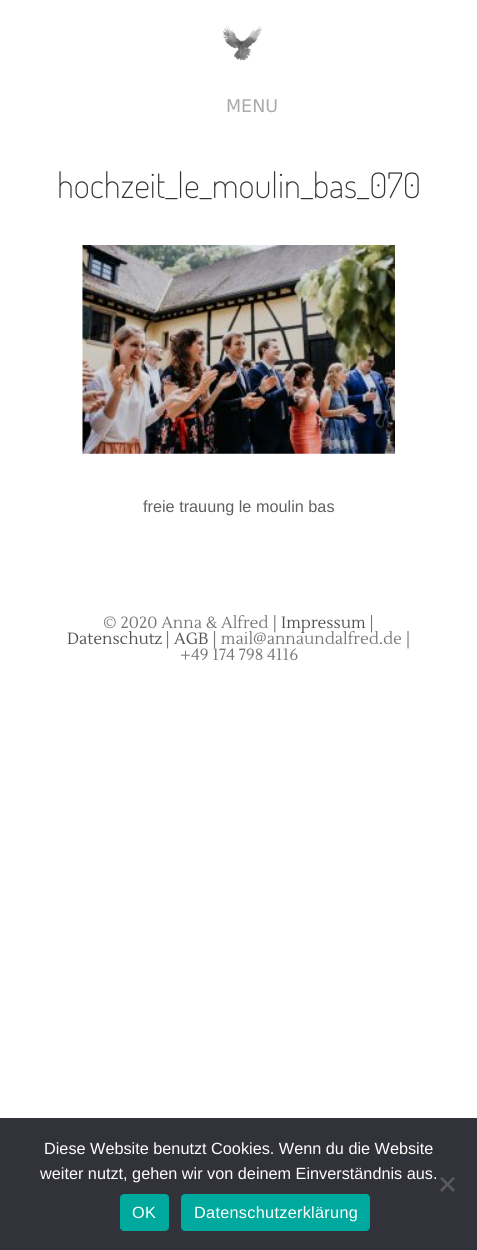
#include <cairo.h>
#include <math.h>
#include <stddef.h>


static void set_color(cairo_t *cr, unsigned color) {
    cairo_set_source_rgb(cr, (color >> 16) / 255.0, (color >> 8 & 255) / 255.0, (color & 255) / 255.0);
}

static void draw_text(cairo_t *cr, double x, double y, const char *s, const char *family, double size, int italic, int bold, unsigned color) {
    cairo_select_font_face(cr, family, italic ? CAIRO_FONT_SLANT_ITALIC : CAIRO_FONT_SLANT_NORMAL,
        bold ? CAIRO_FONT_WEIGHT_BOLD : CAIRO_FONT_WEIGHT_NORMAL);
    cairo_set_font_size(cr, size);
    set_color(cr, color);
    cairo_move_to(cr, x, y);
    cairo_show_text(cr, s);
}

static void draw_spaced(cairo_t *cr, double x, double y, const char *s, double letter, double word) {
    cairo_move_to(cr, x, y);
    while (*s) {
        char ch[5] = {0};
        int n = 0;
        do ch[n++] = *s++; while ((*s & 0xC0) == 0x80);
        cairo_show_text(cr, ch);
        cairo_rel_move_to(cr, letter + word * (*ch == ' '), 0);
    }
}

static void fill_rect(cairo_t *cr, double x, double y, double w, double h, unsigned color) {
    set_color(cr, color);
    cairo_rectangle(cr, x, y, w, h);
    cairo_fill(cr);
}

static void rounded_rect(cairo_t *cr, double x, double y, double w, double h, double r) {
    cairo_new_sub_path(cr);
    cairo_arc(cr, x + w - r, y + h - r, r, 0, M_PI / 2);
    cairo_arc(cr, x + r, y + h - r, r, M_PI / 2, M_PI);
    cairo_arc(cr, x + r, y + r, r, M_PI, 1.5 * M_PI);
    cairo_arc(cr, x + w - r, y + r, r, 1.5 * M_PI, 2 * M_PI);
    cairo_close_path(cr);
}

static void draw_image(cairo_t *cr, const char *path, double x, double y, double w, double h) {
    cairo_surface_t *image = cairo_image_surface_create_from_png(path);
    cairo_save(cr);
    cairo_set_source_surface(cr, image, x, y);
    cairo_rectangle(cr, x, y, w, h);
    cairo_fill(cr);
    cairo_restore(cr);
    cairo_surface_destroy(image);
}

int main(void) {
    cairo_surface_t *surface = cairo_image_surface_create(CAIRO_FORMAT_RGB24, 477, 1250);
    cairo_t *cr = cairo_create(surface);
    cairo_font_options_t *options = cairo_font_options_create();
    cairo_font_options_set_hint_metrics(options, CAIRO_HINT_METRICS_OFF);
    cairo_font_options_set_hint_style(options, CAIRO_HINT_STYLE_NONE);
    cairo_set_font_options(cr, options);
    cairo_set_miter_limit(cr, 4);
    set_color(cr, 0xFFFFFF);
    cairo_paint(cr);
    draw_image(cr, "assets/img1.png", 223, 25, 39, 36);
    draw_text(cr, 226, 112, "MENU", "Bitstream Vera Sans", 17.5, 0, 0, 0xAAAAAA);
    draw_text(cr, 57, 198, "hochzeit_le_moulin_bas_070", "Dosis ExtraLight", 35, 0, 0, 0x333333);
    draw_image(cr, "assets/img2.png", 82, 245, 313, 209);
    draw_text(cr, 143, 512, "freie trauung le moulin bas", "Liberation Sans", 16.25, 0, 0, 0x606060);
    draw_text(cr, 103, 628, "© 2020 Anna & Alfred |", "Lustria", 16.25, 0, 0, 0x777777);
    draw_text(cr, 281, 628, "Impressum", "Lustria", 16.25, 0, 0, 0x505050);
    draw_text(cr, 369, 628, "|", "Lustria", 16.25, 0, 0, 0x777777);
    draw_text(cr, 67, 644, "Datenschutz", "Lustria", 16.25, 0, 0, 0x505050);
    draw_text(cr, 165, 644, "|", "Lustria", 16.25, 0, 0, 0x777777);
    draw_text(cr, 174, 644, "AGB", "Lustria", 16.25, 0, 0, 0x505050);
    draw_text(cr, 212, 644, "| mail@annaundalfred.de |", "Lustria", 16.25, 0, 0, 0x777777);
    draw_text(cr, 180, 660, "+49 174 798 4116", "Lustria", 16.25, 0, 0, 0x777777);
    fill_rect(cr, 0, 1118, 477, 132, 0x32323A);
    draw_text(cr, 44, 1154, "Diese Website benutzt Cookies. Wenn du die Website", "Liberation Sans", 16.25, 0, 0, 0xFFFFFF);
    draw_text(cr, 40, 1179, "weiter nutzt, gehen wir von deinem Einverständnis aus.", "Liberation Sans", 16.25, 0, 0, 0xFFFFFF);
    set_color(cr, 0x59595D);
    cairo_new_path(cr);
    cairo_move_to(cr, 453, 1177);
    cairo_line_to(cr, 455, 1178.5);
    cairo_line_to(cr, 442, 1192);
    cairo_line_to(cr, 440, 1190);
    cairo_close_path(cr);
    cairo_fill(cr);
    cairo_new_path(cr);
    cairo_move_to(cr, 440, 1178.5);
    cairo_line_to(cr, 442, 1177);
    cairo_line_to(cr, 455, 1190);
    cairo_line_to(cr, 453, 1192);
    cairo_close_path(cr);
    cairo_fill(cr);
    set_color(cr, 0x00A99D);
    rounded_rect(cr, 120, 1194, 49, 37, 4);
    cairo_fill(cr);
    set_color(cr, 0xFFFFFF);
    draw_spaced(cr, 132, 1218, "OK", 0.3, 0);
    set_color(cr, 0x00A99D);
    rounded_rect(cr, 181, 1194, 189, 37, 4);
    cairo_fill(cr);
    set_color(cr, 0xFFFFFF);
    draw_spaced(cr, 194, 1218, "Datenschutzerklärung", 0.3, 0);
    cairo_surface_write_to_png(surface, "output.png");
    cairo_font_options_destroy(options);
    cairo_destroy(cr);
    cairo_surface_destroy(surface);
    return 0;
}
